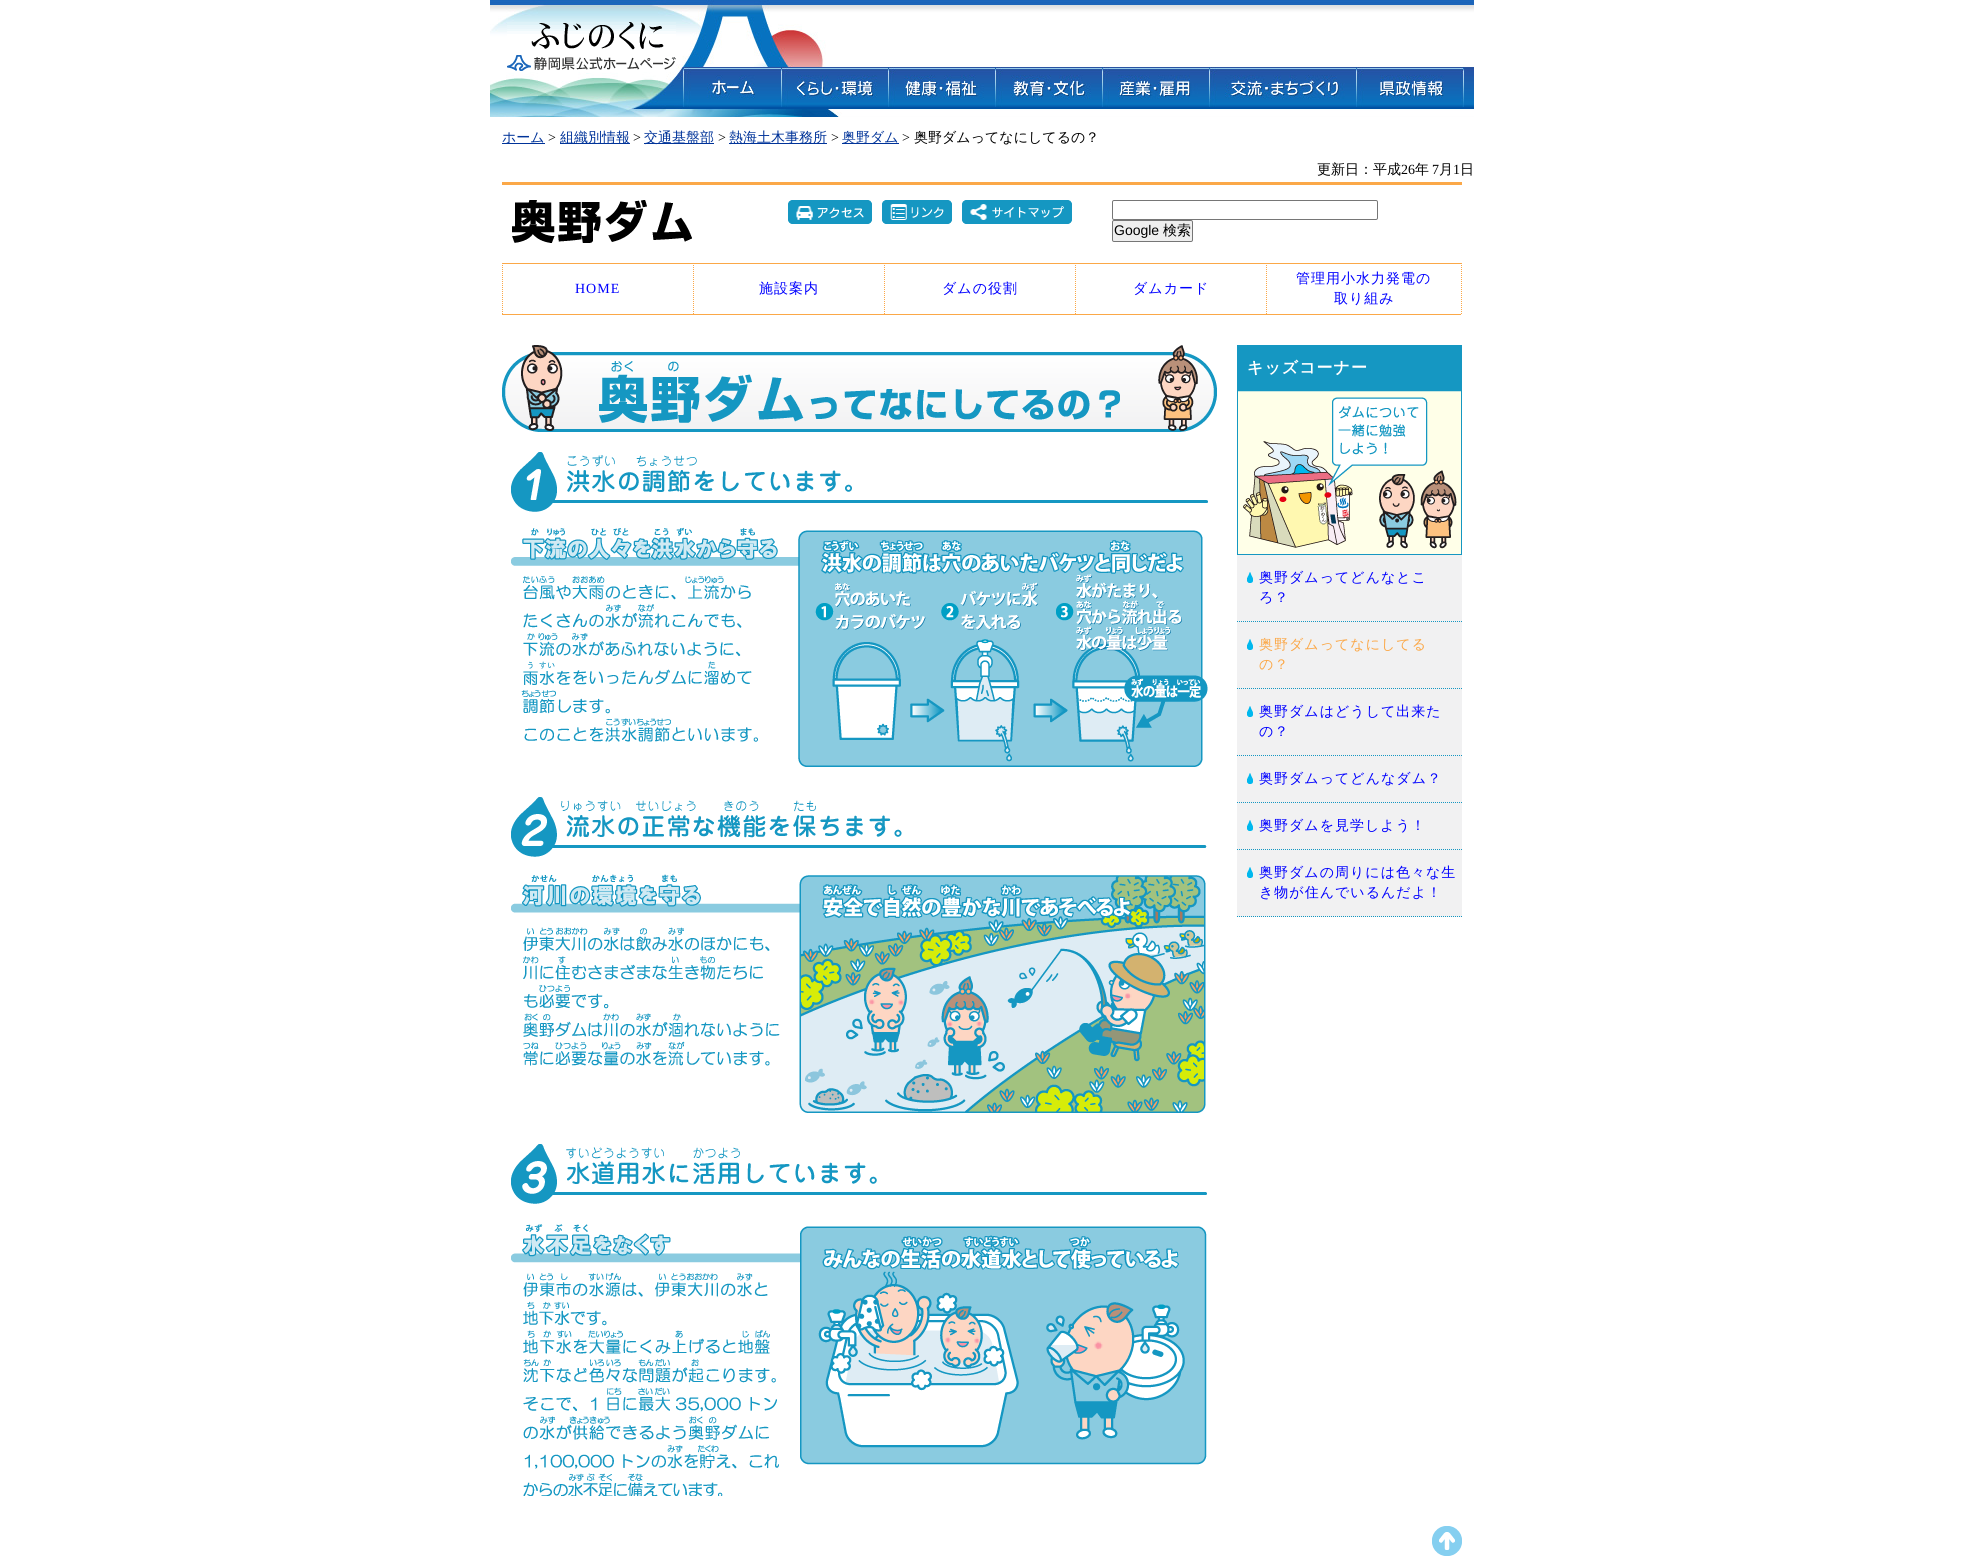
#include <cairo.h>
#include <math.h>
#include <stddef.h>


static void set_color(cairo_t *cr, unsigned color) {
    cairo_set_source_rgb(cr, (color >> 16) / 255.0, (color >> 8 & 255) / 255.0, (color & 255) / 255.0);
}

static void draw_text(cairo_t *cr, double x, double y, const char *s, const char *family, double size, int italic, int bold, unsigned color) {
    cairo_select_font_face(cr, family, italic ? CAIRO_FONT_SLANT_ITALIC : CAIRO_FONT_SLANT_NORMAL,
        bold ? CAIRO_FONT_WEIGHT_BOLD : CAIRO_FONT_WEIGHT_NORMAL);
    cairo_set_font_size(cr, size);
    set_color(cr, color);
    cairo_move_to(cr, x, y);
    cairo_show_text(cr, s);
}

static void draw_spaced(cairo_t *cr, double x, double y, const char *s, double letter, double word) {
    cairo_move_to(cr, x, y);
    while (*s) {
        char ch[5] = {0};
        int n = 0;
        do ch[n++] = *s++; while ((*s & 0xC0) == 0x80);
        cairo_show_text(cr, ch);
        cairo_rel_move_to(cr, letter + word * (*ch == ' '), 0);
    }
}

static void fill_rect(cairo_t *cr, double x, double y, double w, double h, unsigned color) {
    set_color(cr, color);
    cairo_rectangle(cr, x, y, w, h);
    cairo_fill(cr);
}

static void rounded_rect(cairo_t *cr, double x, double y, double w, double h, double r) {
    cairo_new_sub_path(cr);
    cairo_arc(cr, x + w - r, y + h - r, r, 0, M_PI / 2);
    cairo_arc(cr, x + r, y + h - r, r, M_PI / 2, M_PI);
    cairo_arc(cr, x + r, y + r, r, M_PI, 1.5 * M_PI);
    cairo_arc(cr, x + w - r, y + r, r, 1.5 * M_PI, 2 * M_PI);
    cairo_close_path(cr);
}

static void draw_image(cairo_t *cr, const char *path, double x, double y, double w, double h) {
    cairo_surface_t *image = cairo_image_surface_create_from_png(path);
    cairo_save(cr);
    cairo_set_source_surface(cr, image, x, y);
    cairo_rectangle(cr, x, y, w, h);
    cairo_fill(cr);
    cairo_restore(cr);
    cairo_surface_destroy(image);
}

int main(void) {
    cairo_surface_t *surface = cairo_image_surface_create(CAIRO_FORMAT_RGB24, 1964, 1559);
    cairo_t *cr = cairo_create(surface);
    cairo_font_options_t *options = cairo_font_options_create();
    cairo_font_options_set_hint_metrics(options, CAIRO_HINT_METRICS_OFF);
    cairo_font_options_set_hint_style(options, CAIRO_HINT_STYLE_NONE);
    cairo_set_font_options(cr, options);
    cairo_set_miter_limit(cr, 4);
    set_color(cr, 0xFFFFFF);
    cairo_paint(cr);
    draw_image(cr, "assets/img1.png", 490, 0, 984, 117);
    draw_image(cr, "assets/img2.png", 507, 22, 169, 49);
    draw_image(cr, "assets/img3.png", 683, 67, 98, 42);
    draw_image(cr, "assets/img4.png", 781, 67, 107, 42);
    draw_image(cr, "assets/img5.png", 888, 67, 107, 42);
    draw_image(cr, "assets/img6.png", 995, 67, 107, 42);
    draw_image(cr, "assets/img7.png", 1102, 67, 107, 42);
    draw_image(cr, "assets/img8.png", 1209, 67, 147, 42);
    draw_image(cr, "assets/img9.png", 1356, 67, 108, 42);
    fill_rect(cr, 502, 143, 43, 1, 0x003399);
    draw_text(cr, 502, 142, "ホーム", "WenQuanYi Zen Hei Medium", 14, 0, 0, 0x003399);
    draw_text(cr, 548, 142, ">", "Liberation Serif", 14, 0, 0, 0x000000);
    fill_rect(cr, 560, 143, 70, 1, 0x003399);
    draw_text(cr, 560, 142, "組織別情報", "WenQuanYi Zen Hei Medium", 14, 0, 0, 0x003399);
    draw_text(cr, 633, 142, ">", "Liberation Serif", 14, 0, 0, 0x000000);
    fill_rect(cr, 644, 143, 70, 1, 0x003399);
    draw_text(cr, 644, 142, "交通基盤部", "WenQuanYi Zen Hei Medium", 14, 0, 0, 0x003399);
    draw_text(cr, 718, 142, ">", "Liberation Serif", 14, 0, 0, 0x000000);
    fill_rect(cr, 729, 143, 98, 1, 0x003399);
    draw_text(cr, 729, 142, "熱海土木事務所", "WenQuanYi Zen Hei Medium", 14, 0, 0, 0x003399);
    draw_text(cr, 831, 142, ">", "Liberation Serif", 14, 0, 0, 0x000000);
    fill_rect(cr, 842, 143, 57, 1, 0x003399);
    draw_text(cr, 842, 142, "奥野ダム", "WenQuanYi Zen Hei Medium", 14, 0, 0, 0x003399);
    draw_text(cr, 902, 142, ">", "Liberation Serif", 14, 0, 0, 0x000000);
    draw_text(cr, 914, 142, "奥野ダムってなにしてるの？", "WenQuanYi Zen Hei Medium", 14, 0, 0, 0x000000);
    draw_text(cr, 1317, 174, "更新日：平成", "WenQuanYi Zen Hei Medium", 14, 0, 0, 0x000000);
    draw_text(cr, 1401, 174, "26", "Liberation Serif", 14, 0, 0, 0x000000);
    draw_text(cr, 1415, 174, "年", "WenQuanYi Zen Hei Medium", 14, 0, 0, 0x000000);
    draw_text(cr, 1432, 174, "7", "Liberation Serif", 14, 0, 0, 0x000000);
    draw_text(cr, 1439, 174, "月", "WenQuanYi Zen Hei Medium", 14, 0, 0, 0x000000);
    draw_text(cr, 1453, 174, "1", "Liberation Serif", 14, 0, 0, 0x000000);
    draw_text(cr, 1460, 174, "日", "WenQuanYi Zen Hei Medium", 14, 0, 0, 0x000000);
    fill_rect(cr, 502, 182, 960, 3, 0xFBA848);
    draw_image(cr, "assets/img10.png", 512, 200, 180, 43);
    draw_image(cr, "assets/img11.png", 788, 200, 84, 24);
    draw_image(cr, "assets/img12.png", 882, 200, 70, 24);
    draw_image(cr, "assets/img13.png", 962, 200, 110, 24);
    rounded_rect(cr, 1112.5, 200.5, 265, 19, 1.5);
    set_color(cr, 0x767676);
    cairo_set_line_width(cr, 1);
    cairo_stroke(cr);
    set_color(cr, 0xEFEFEF);
    rounded_rect(cr, 1112.5, 220.5, 80, 21, 1.5);
    cairo_fill_preserve(cr);
    set_color(cr, 0x767676);
    cairo_stroke(cr);
    draw_text(cr, 1114, 235, "Google", "Liberation Sans", 14, 0, 0, 0x000000);
    draw_text(cr, 1163, 235, "検索", "WenQuanYi Zen Hei Medium", 14, 0, 0, 0x000000);
    cairo_new_path(cr);
    cairo_move_to(cr, 1461.5, 263);
    cairo_line_to(cr, 1461.5, 315);
    set_color(cr, 0xFBA848);
    cairo_set_dash(cr, (double[]){1, 1}, 2, 0);
    cairo_stroke(cr);
    fill_rect(cr, 502, 263, 959, 1, 0xFBA848);
    fill_rect(cr, 502, 314, 959, 1, 0xFBA848);
    cairo_new_path(cr);
    cairo_move_to(cr, 502.5, 263);
    cairo_line_to(cr, 502.5, 315);
    cairo_stroke(cr);
    cairo_select_font_face(cr, "Liberation Serif", CAIRO_FONT_SLANT_NORMAL, CAIRO_FONT_WEIGHT_NORMAL);
    set_color(cr, 0x0000FF);
    draw_spaced(cr, 575, 293, "HOME", 1, 0);
    cairo_new_path(cr);
    cairo_move_to(cr, 693.5, 263);
    cairo_line_to(cr, 693.5, 315);
    set_color(cr, 0xFBA848);
    cairo_stroke(cr);
    cairo_select_font_face(cr, "WenQuanYi Zen Hei Medium", CAIRO_FONT_SLANT_NORMAL, CAIRO_FONT_WEIGHT_NORMAL);
    set_color(cr, 0x0000FF);
    draw_spaced(cr, 759, 293, "施設案内", 1, 0);
    cairo_new_path(cr);
    cairo_move_to(cr, 884.5, 263);
    cairo_line_to(cr, 884.5, 315);
    set_color(cr, 0xFBA848);
    cairo_stroke(cr);
    set_color(cr, 0x0000FF);
    draw_spaced(cr, 942, 293, "ダムの役割", 1, 0);
    cairo_new_path(cr);
    cairo_move_to(cr, 1075.5, 263);
    cairo_line_to(cr, 1075.5, 315);
    set_color(cr, 0xFBA848);
    cairo_stroke(cr);
    set_color(cr, 0x0000FF);
    draw_spaced(cr, 1133, 293, "ダムカード", 1, 0);
    cairo_new_path(cr);
    cairo_move_to(cr, 1266.5, 263);
    cairo_line_to(cr, 1266.5, 315);
    set_color(cr, 0xFBA848);
    cairo_stroke(cr);
    set_color(cr, 0x0000FF);
    draw_spaced(cr, 1296, 283, "管理用小水力発電の", 1, 0);
    draw_spaced(cr, 1334, 303, "取り組み", 1, 0);
    draw_image(cr, "assets/img14.png", 502, 345, 715, 87);
    draw_image(cr, "assets/img15.png", 511, 452, 697, 315);
    draw_image(cr, "assets/img16.png", 511, 797, 696, 316);
    draw_image(cr, "assets/img17.png", 511, 1144, 696, 352);
    fill_rect(cr, 1237, 345, 225, 45, 0x1597C2);
    cairo_select_font_face(cr, "WenQuanYi Zen Hei", CAIRO_FONT_SLANT_NORMAL, CAIRO_FONT_WEIGHT_BOLD);
    cairo_set_font_size(cr, 16);
    set_color(cr, 0xFFFFFF);
    draw_spaced(cr, 1247, 373, "キッズコーナー", 1, 0);
    draw_image(cr, "assets/img18.png", 1237, 390, 225, 165);
    fill_rect(cr, 1237, 555, 225, 362, 0xF1F1F2);
    draw_image(cr, "assets/img19.png", 1247, 572, 6, 11);
    cairo_new_path(cr);
    cairo_move_to(cr, 1237, 621.5);
    cairo_line_to(cr, 1462, 621.5);
    set_color(cr, 0x1597C2);
    cairo_stroke(cr);
    cairo_select_font_face(cr, "WenQuanYi Zen Hei Medium", CAIRO_FONT_SLANT_NORMAL, CAIRO_FONT_WEIGHT_NORMAL);
    cairo_set_font_size(cr, 14);
    set_color(cr, 0x0000FF);
    draw_spaced(cr, 1259, 582, "奥野ダムってどんなとこ", 1, 0);
    draw_spaced(cr, 1259, 602, "ろ？", 1, 0);
    draw_image(cr, "assets/img19.png", 1247, 639, 6, 11);
    cairo_new_path(cr);
    cairo_move_to(cr, 1237, 688.5);
    cairo_line_to(cr, 1462, 688.5);
    set_color(cr, 0x1597C2);
    cairo_stroke(cr);
    set_color(cr, 0xFBA848);
    draw_spaced(cr, 1259, 649, "奥野ダムってなにしてる", 1, 0);
    draw_spaced(cr, 1259, 669, "の？", 1, 0);
    draw_image(cr, "assets/img19.png", 1247, 706, 6, 11);
    cairo_new_path(cr);
    cairo_move_to(cr, 1237, 755.5);
    cairo_line_to(cr, 1462, 755.5);
    set_color(cr, 0x1597C2);
    cairo_stroke(cr);
    set_color(cr, 0x0000FF);
    draw_spaced(cr, 1259, 716, "奥野ダムはどうして出来た", 1, 0);
    draw_spaced(cr, 1259, 736, "の？", 1, 0);
    draw_image(cr, "assets/img19.png", 1247, 773, 6, 11);
    cairo_new_path(cr);
    cairo_move_to(cr, 1237, 802.5);
    cairo_line_to(cr, 1462, 802.5);
    set_color(cr, 0x1597C2);
    cairo_stroke(cr);
    set_color(cr, 0x0000FF);
    draw_spaced(cr, 1259, 783, "奥野ダムってどんなダム？", 1, 0);
    draw_image(cr, "assets/img19.png", 1247, 820, 6, 11);
    cairo_new_path(cr);
    cairo_move_to(cr, 1237, 849.5);
    cairo_line_to(cr, 1462, 849.5);
    set_color(cr, 0x1597C2);
    cairo_stroke(cr);
    set_color(cr, 0x0000FF);
    draw_spaced(cr, 1259, 830, "奥野ダムを見学しよう！", 1, 0);
    draw_image(cr, "assets/img19.png", 1247, 867, 6, 11);
    cairo_new_path(cr);
    cairo_move_to(cr, 1237, 916.5);
    cairo_line_to(cr, 1462, 916.5);
    set_color(cr, 0x1597C2);
    cairo_stroke(cr);
    set_color(cr, 0x0000FF);
    draw_spaced(cr, 1259, 877, "奥野ダムの周りには色々な生", 1, 0);
    draw_spaced(cr, 1259, 897, "き物が住んでいるんだよ！", 1, 0);
    draw_image(cr, "assets/img20.png", 1432, 1526, 30, 30);
    cairo_surface_write_to_png(surface, "output.png");
    cairo_font_options_destroy(options);
    cairo_destroy(cr);
    cairo_surface_destroy(surface);
    return 0;
}
